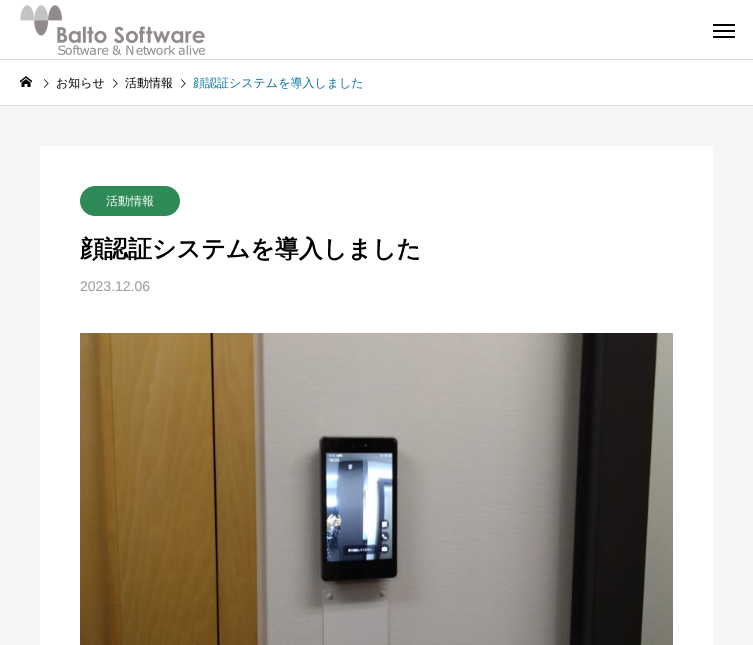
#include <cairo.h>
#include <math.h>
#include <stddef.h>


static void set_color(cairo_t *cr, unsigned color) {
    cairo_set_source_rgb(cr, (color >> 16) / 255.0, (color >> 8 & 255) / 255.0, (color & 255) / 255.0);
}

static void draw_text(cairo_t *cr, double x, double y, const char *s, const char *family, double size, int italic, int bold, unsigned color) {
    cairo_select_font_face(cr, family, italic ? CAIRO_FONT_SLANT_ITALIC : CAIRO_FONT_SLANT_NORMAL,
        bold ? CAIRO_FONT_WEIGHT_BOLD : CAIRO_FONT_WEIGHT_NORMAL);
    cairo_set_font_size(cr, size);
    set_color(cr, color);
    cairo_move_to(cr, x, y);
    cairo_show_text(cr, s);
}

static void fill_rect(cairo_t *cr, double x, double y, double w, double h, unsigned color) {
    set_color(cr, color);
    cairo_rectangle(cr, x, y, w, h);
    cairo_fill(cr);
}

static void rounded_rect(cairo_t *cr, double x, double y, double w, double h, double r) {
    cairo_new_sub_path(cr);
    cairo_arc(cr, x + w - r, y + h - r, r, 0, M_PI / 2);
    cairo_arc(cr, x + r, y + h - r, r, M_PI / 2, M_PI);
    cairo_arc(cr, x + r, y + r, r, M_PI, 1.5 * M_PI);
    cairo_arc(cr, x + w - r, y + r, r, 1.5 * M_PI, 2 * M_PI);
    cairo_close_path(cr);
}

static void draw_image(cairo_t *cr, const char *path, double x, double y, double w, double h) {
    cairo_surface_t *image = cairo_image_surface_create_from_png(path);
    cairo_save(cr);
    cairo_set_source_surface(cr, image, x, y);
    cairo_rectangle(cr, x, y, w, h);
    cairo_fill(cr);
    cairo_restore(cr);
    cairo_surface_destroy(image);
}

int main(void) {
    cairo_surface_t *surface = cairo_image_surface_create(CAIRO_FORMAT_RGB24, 753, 645);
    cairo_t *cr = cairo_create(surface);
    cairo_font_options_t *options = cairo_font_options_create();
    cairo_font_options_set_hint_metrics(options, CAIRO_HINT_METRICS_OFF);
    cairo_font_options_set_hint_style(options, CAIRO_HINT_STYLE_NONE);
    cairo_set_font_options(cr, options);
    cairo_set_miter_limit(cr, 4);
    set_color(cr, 0xFFFFFF);
    cairo_paint(cr);
    draw_image(cr, "assets/img1.png", 20, 5, 185, 50);
    fill_rect(cr, 713, 24, 22, 2, 0x000000);
    fill_rect(cr, 713, 30, 22, 2, 0x000000);
    fill_rect(cr, 713, 36, 22, 2, 0x000000);
    fill_rect(cr, 0, 59, 753, 1, 0xDDDDDD);
    fill_rect(cr, 0, 105, 753, 1, 0xDDDDDD);
    draw_image(cr, "assets/img2.png", 20, 76, 12, 11);
    draw_image(cr, "assets/img3.png", 44, 79, 5, 9);
    draw_text(cr, 56, 87, "お知らせ", "WenQuanYi Zen Hei Medium", 12, 0, 0, 0x000000);
    draw_image(cr, "assets/img3.png", 113, 79, 5, 9);
    draw_text(cr, 125, 87, "活動情報", "WenQuanYi Zen Hei Medium", 12, 0, 0, 0x000000);
    draw_image(cr, "assets/img3.png", 181, 79, 5, 9);
    draw_text(cr, 193, 87, "顔認証システムを導入しました", "WenQuanYi Zen Hei Medium", 12, 0, 0, 0x00729F);
    fill_rect(cr, 0, 106, 753, 539, 0xF6F6F6);
    fill_rect(cr, 40, 146, 673, 499, 0xFFFFFF);
    set_color(cr, 0x2E8B57);
    rounded_rect(cr, 80, 186, 100, 30, 15);
    cairo_fill(cr);
    draw_text(cr, 106, 205, "活動情報", "WenQuanYi Zen Hei Medium", 12, 0, 0, 0xFFFFFF);
    draw_text(cr, 80, 257, "顔認証システムを導入しました", "WenQuanYi Zen Hei", 24, 0, 1, 0x000000);
    draw_text(cr, 80, 291, "2023.12.06", "Liberation Sans", 14, 0, 0, 0x999999);
    draw_image(cr, "assets/img4.png", 80, 333, 593, 312);
    cairo_surface_write_to_png(surface, "output.png");
    cairo_font_options_destroy(options);
    cairo_destroy(cr);
    cairo_surface_destroy(surface);
    return 0;
}
